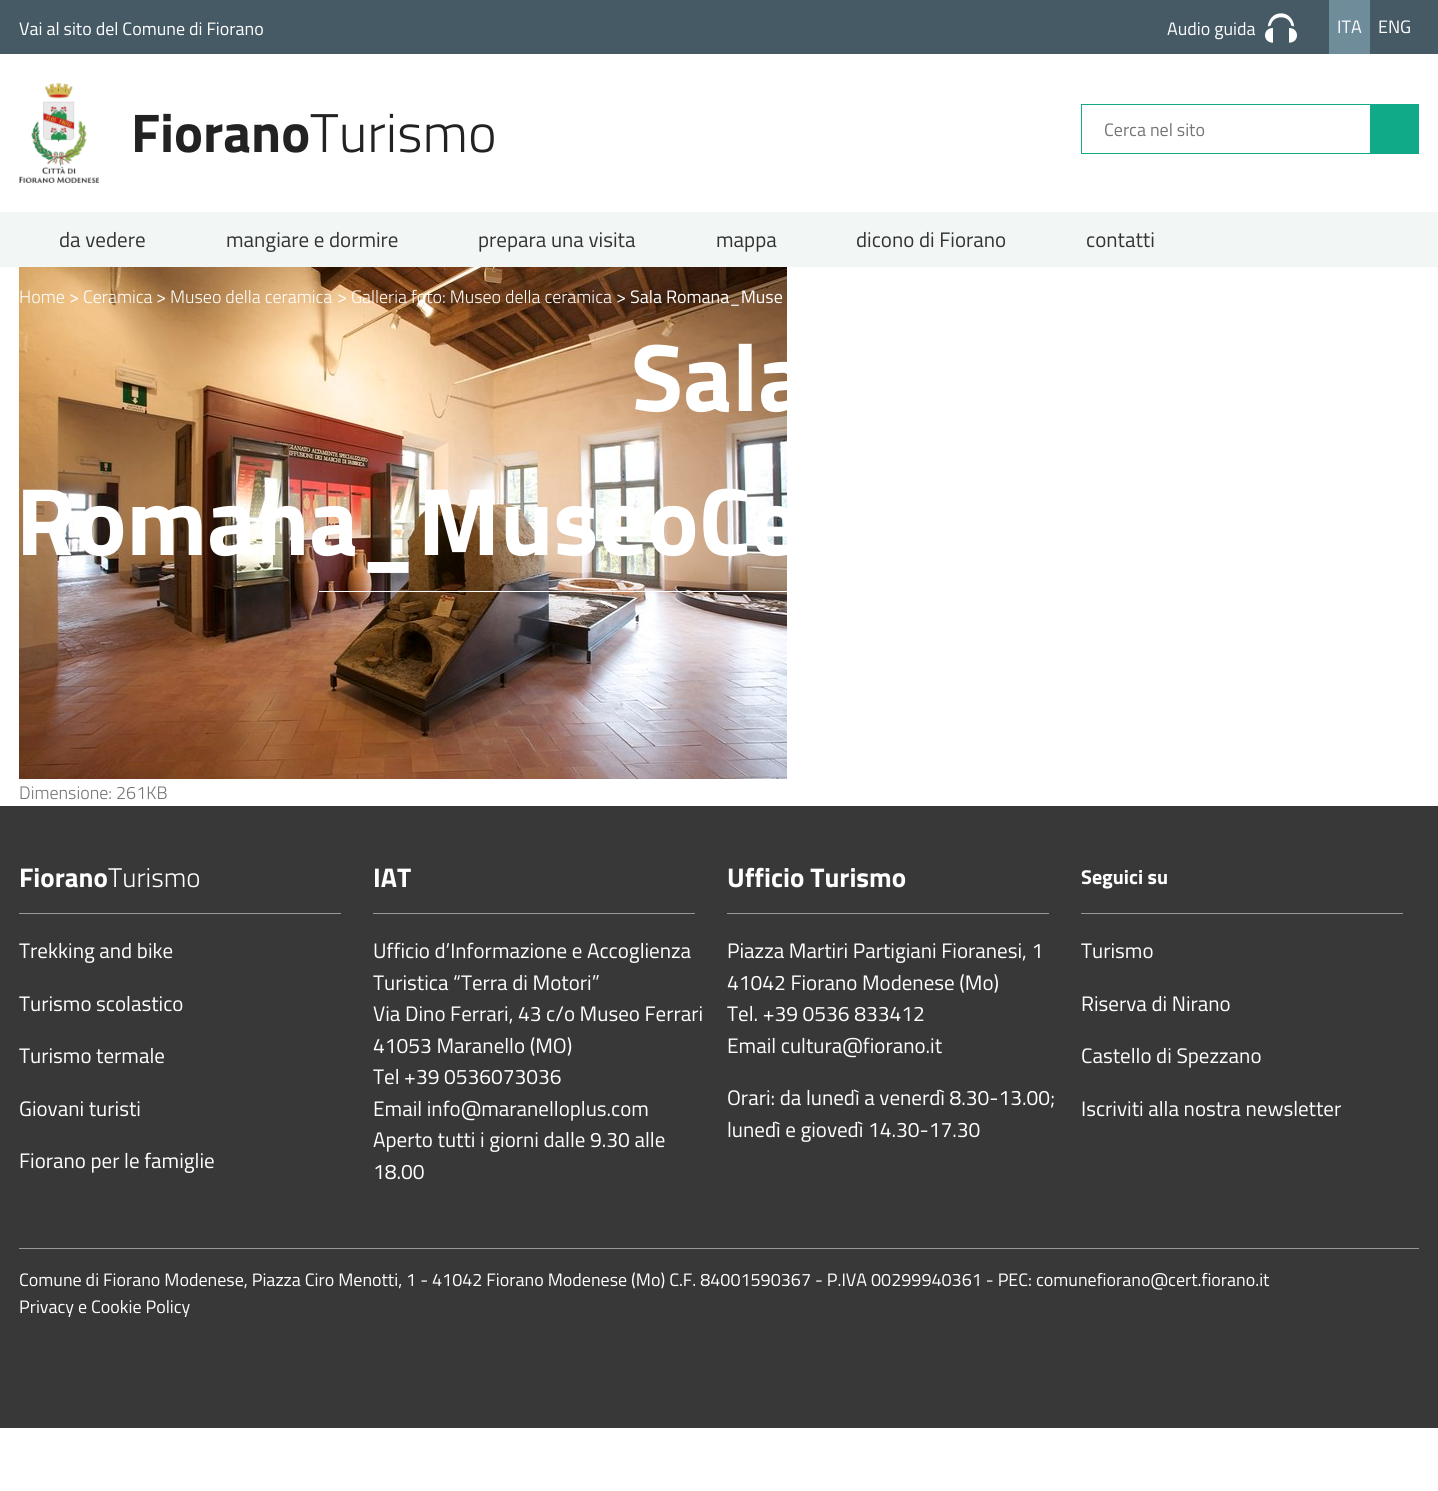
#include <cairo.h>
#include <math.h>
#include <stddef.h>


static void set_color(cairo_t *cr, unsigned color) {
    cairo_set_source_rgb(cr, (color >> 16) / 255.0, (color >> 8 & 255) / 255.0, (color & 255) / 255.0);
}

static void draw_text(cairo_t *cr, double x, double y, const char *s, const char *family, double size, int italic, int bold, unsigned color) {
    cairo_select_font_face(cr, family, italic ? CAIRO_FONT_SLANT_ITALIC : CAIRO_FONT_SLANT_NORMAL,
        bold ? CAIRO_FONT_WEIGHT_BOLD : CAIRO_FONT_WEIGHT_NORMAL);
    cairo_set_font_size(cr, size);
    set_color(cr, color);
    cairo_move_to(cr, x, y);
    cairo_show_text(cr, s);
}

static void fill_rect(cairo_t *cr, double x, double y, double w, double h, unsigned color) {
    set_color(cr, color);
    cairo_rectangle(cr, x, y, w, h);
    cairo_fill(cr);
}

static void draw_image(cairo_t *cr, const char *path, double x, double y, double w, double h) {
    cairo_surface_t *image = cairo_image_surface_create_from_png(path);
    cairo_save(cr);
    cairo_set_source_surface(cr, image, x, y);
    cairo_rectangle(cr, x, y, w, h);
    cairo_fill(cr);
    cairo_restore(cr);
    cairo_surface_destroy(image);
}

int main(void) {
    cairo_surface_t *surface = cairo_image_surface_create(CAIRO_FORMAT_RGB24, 1438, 1491);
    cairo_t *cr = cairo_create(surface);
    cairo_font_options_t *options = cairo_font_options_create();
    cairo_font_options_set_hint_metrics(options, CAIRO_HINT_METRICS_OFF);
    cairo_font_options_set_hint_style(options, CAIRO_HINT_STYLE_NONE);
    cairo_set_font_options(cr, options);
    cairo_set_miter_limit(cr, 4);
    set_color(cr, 0xFFFFFF);
    cairo_paint(cr);
    fill_rect(cr, 0, 0, 1438, 54, 0x465A65);
    draw_text(cr, 19, 35, "Vai al sito del Comune di Fiorano", "Titillium Web", 18, 0, 0, 0xFFFFFF);
    draw_text(cr, 1167, 35, "Audio guida", "Titillium Web", 18, 0, 0, 0xFFFFFF);
    draw_image(cr, "assets/img1.png", 1265, 13, 32, 30);
    fill_rect(cr, 1329, 0, 41, 54, 0x6F8C9A);
    draw_text(cr, 1337, 33, "ITA", "Titillium Web", 18, 0, 0, 0xFFFFFF);
    draw_text(cr, 1378, 33, "ENG", "Titillium Web", 18, 0, 0, 0xFFFFFF);
    draw_image(cr, "assets/img2.png", 19, 83, 80, 100);
    draw_text(cr, 131, 152, "Fiorano", "Titillium Web", 54.5, 0, 1, 0x222222);
    draw_text(cr, 310, 152, "Turismo", "Titillium Web Light", 54.5, 0, 0, 0x222222);
    cairo_rectangle(cr, 1081.5, 104.5, 289, 49);
    set_color(cr, 0x11AA88);
    cairo_set_line_width(cr, 1);
    cairo_stroke(cr);
    draw_text(cr, 1104, 136, "Cerca nel sito", "Titillium Web", 18, 0, 0, 0x757575);
    fill_rect(cr, 1371, 104, 48, 50, 0x11AA88);
    fill_rect(cr, 0, 212, 1438, 55, 0xF2F7F6);
    draw_text(cr, 59, 247, "da vedere", "Titillium Web", 21, 0, 0, 0x333333);
    draw_text(cr, 226, 247, "mangiare e dormire", "Titillium Web", 21, 0, 0, 0x333333);
    draw_text(cr, 478, 247, "prepara una visita", "Titillium Web", 21, 0, 0, 0x333333);
    draw_text(cr, 716, 247, "mappa", "Titillium Web", 21, 0, 0, 0x333333);
    draw_text(cr, 856, 247, "dicono di Fiorano", "Titillium Web", 21, 0, 0, 0x333333);
    draw_text(cr, 1086, 247, "contatti", "Titillium Web", 21, 0, 0, 0x333333);
    draw_image(cr, "assets/img3.png", 19, 267, 768, 512);
    draw_text(cr, 19, 303, "Home", "Titillium Web Light", 18, 0, 0, 0xFFFFFF);
    draw_text(cr, 69, 303, ">", "Titillium Web", 18, 0, 0, 0xFFFFFF);
    draw_text(cr, 83, 303, "Ceramica", "Titillium Web Light", 18, 0, 0, 0xFFFFFF);
    draw_text(cr, 156, 303, ">", "Titillium Web", 18, 0, 0, 0xFFFFFF);
    draw_text(cr, 170, 303, "Museo della ceramica", "Titillium Web Light", 18, 0, 0, 0xFFFFFF);
    draw_text(cr, 337, 303, ">", "Titillium Web", 18, 0, 0, 0xFFFFFF);
    draw_text(cr, 351, 303, "Galleria foto: Museo della ceramica", "Titillium Web Light", 18, 0, 0, 0xFFFFFF);
    draw_text(cr, 616, 303, "> Sala Romana_Muse", "Titillium Web", 18, 0, 0, 0xFFFFFF);
    draw_text(cr, 631, 411, "Sala", "Titillium Web", 96, 0, 1, 0xFFFFFF);
    draw_text(cr, 16, 555, "Romana_MuseoCe", "Titillium Web", 96, 0, 1, 0xFFFFFF);
    fill_rect(cr, 319, 591, 468, 1, 0xFFFFFF);
    draw_text(cr, 19, 799, "Dimensione: 261KB", "Titillium Web Light", 18, 0, 0, 0x757575);
    fill_rect(cr, 0, 806, 1438, 622, 0x383838);
    fill_rect(cr, 19, 913, 322, 1, 0x95989A);
    draw_text(cr, 19, 887, "Fiorano", "Titillium Web", 27, 0, 1, 0xFFFFFF);
    draw_text(cr, 108, 887, "Turismo", "Titillium Web Light", 27, 0, 0, 0xFFFFFF);
    draw_text(cr, 19, 958, "Trekking and bike", "Titillium Web", 21, 0, 0, 0xFFFFFF);
    draw_text(cr, 19, 1011, "Turismo scolastico", "Titillium Web", 21, 0, 0, 0xFFFFFF);
    draw_text(cr, 19, 1063, "Turismo termale", "Titillium Web", 21, 0, 0, 0xFFFFFF);
    draw_text(cr, 19, 1116, "Giovani turisti", "Titillium Web", 21, 0, 0, 0xFFFFFF);
    draw_text(cr, 19, 1168, "Fiorano per le famiglie", "Titillium Web", 21, 0, 0, 0xFFFFFF);
    fill_rect(cr, 373, 913, 322, 1, 0x95989A);
    draw_text(cr, 373, 887, "IAT", "Titillium Web", 27, 0, 1, 0xFFFFFF);
    draw_text(cr, 373, 958, "Ufficio d’Informazione e Accoglienza", "Titillium Web", 21, 0, 0, 0xFFFFFF);
    draw_text(cr, 373, 990, "Turistica “Terra di Motori”", "Titillium Web", 21, 0, 0, 0xFFFFFF);
    draw_text(cr, 373, 1021, "Via Dino Ferrari, 43 c/o Museo Ferrari", "Titillium Web", 21, 0, 0, 0xFFFFFF);
    draw_text(cr, 373, 1053, "41053 Maranello (MO)", "Titillium Web", 21, 0, 0, 0xFFFFFF);
    draw_text(cr, 373, 1084, "Tel +39 0536073036", "Titillium Web", 21, 0, 0, 0xFFFFFF);
    draw_text(cr, 373, 1116, "Email info@maranelloplus.com", "Titillium Web", 21, 0, 0, 0xFFFFFF);
    draw_text(cr, 373, 1147, "Aperto tutti i giorni dalle 9.30 alle", "Titillium Web", 21, 0, 0, 0xFFFFFF);
    draw_text(cr, 373, 1179, "18.00", "Titillium Web", 21, 0, 0, 0xFFFFFF);
    fill_rect(cr, 727, 913, 322, 1, 0x95989A);
    draw_text(cr, 727, 887, "Ufficio Turismo", "Titillium Web", 27, 0, 1, 0xFFFFFF);
    draw_text(cr, 727, 958, "Piazza Martiri Partigiani Fioranesi, 1", "Titillium Web", 21, 0, 0, 0xFFFFFF);
    draw_text(cr, 727, 990, "41042 Fiorano Modenese (Mo)", "Titillium Web", 21, 0, 0, 0xFFFFFF);
    draw_text(cr, 727, 1021, "Tel. +39 0536 833412", "Titillium Web", 21, 0, 0, 0xFFFFFF);
    draw_text(cr, 727, 1053, "Email cultura@fiorano.it", "Titillium Web", 21, 0, 0, 0xFFFFFF);
    draw_text(cr, 727, 1105, "Orari: da lunedì a venerdì 8.30-13.00;", "Titillium Web", 21, 0, 0, 0xFFFFFF);
    draw_text(cr, 727, 1137, "lunedì e giovedì 14.30-17.30", "Titillium Web", 21, 0, 0, 0xFFFFFF);
    fill_rect(cr, 1081, 913, 322, 1, 0x95989A);
    draw_text(cr, 1081, 884, "Seguici su", "Titillium Web", 20, 0, 1, 0xFFFFFF);
    draw_text(cr, 1081, 958, "Turismo", "Titillium Web", 21, 0, 0, 0xFFFFFF);
    draw_text(cr, 1081, 1011, "Riserva di Nirano", "Titillium Web", 21, 0, 0, 0xFFFFFF);
    draw_text(cr, 1081, 1063, "Castello di Spezzano", "Titillium Web", 21, 0, 0, 0xFFFFFF);
    draw_text(cr, 1081, 1116, "Iscriviti alla nostra newsletter", "Titillium Web", 21, 0, 0, 0xFFFFFF);
    fill_rect(cr, 19, 1248, 1400, 1, 0x95989A);
    draw_text(cr, 19, 1286, "Comune di Fiorano Modenese, Piazza Ciro Menotti, 1 - 41042 Fiorano Modenese (Mo) C.F. 84001590367 - P.IVA 00299940361 - PEC: comunefiorano@cert.fiorano.it", "Titillium Web", 18, 0, 0, 0xFFFFFF);
    draw_text(cr, 19, 1313, "Privacy e Cookie Policy", "Titillium Web", 18, 0, 0, 0xFFFFFF);
    cairo_surface_write_to_png(surface, "output.png");
    cairo_font_options_destroy(options);
    cairo_destroy(cr);
    cairo_surface_destroy(surface);
    return 0;
}
